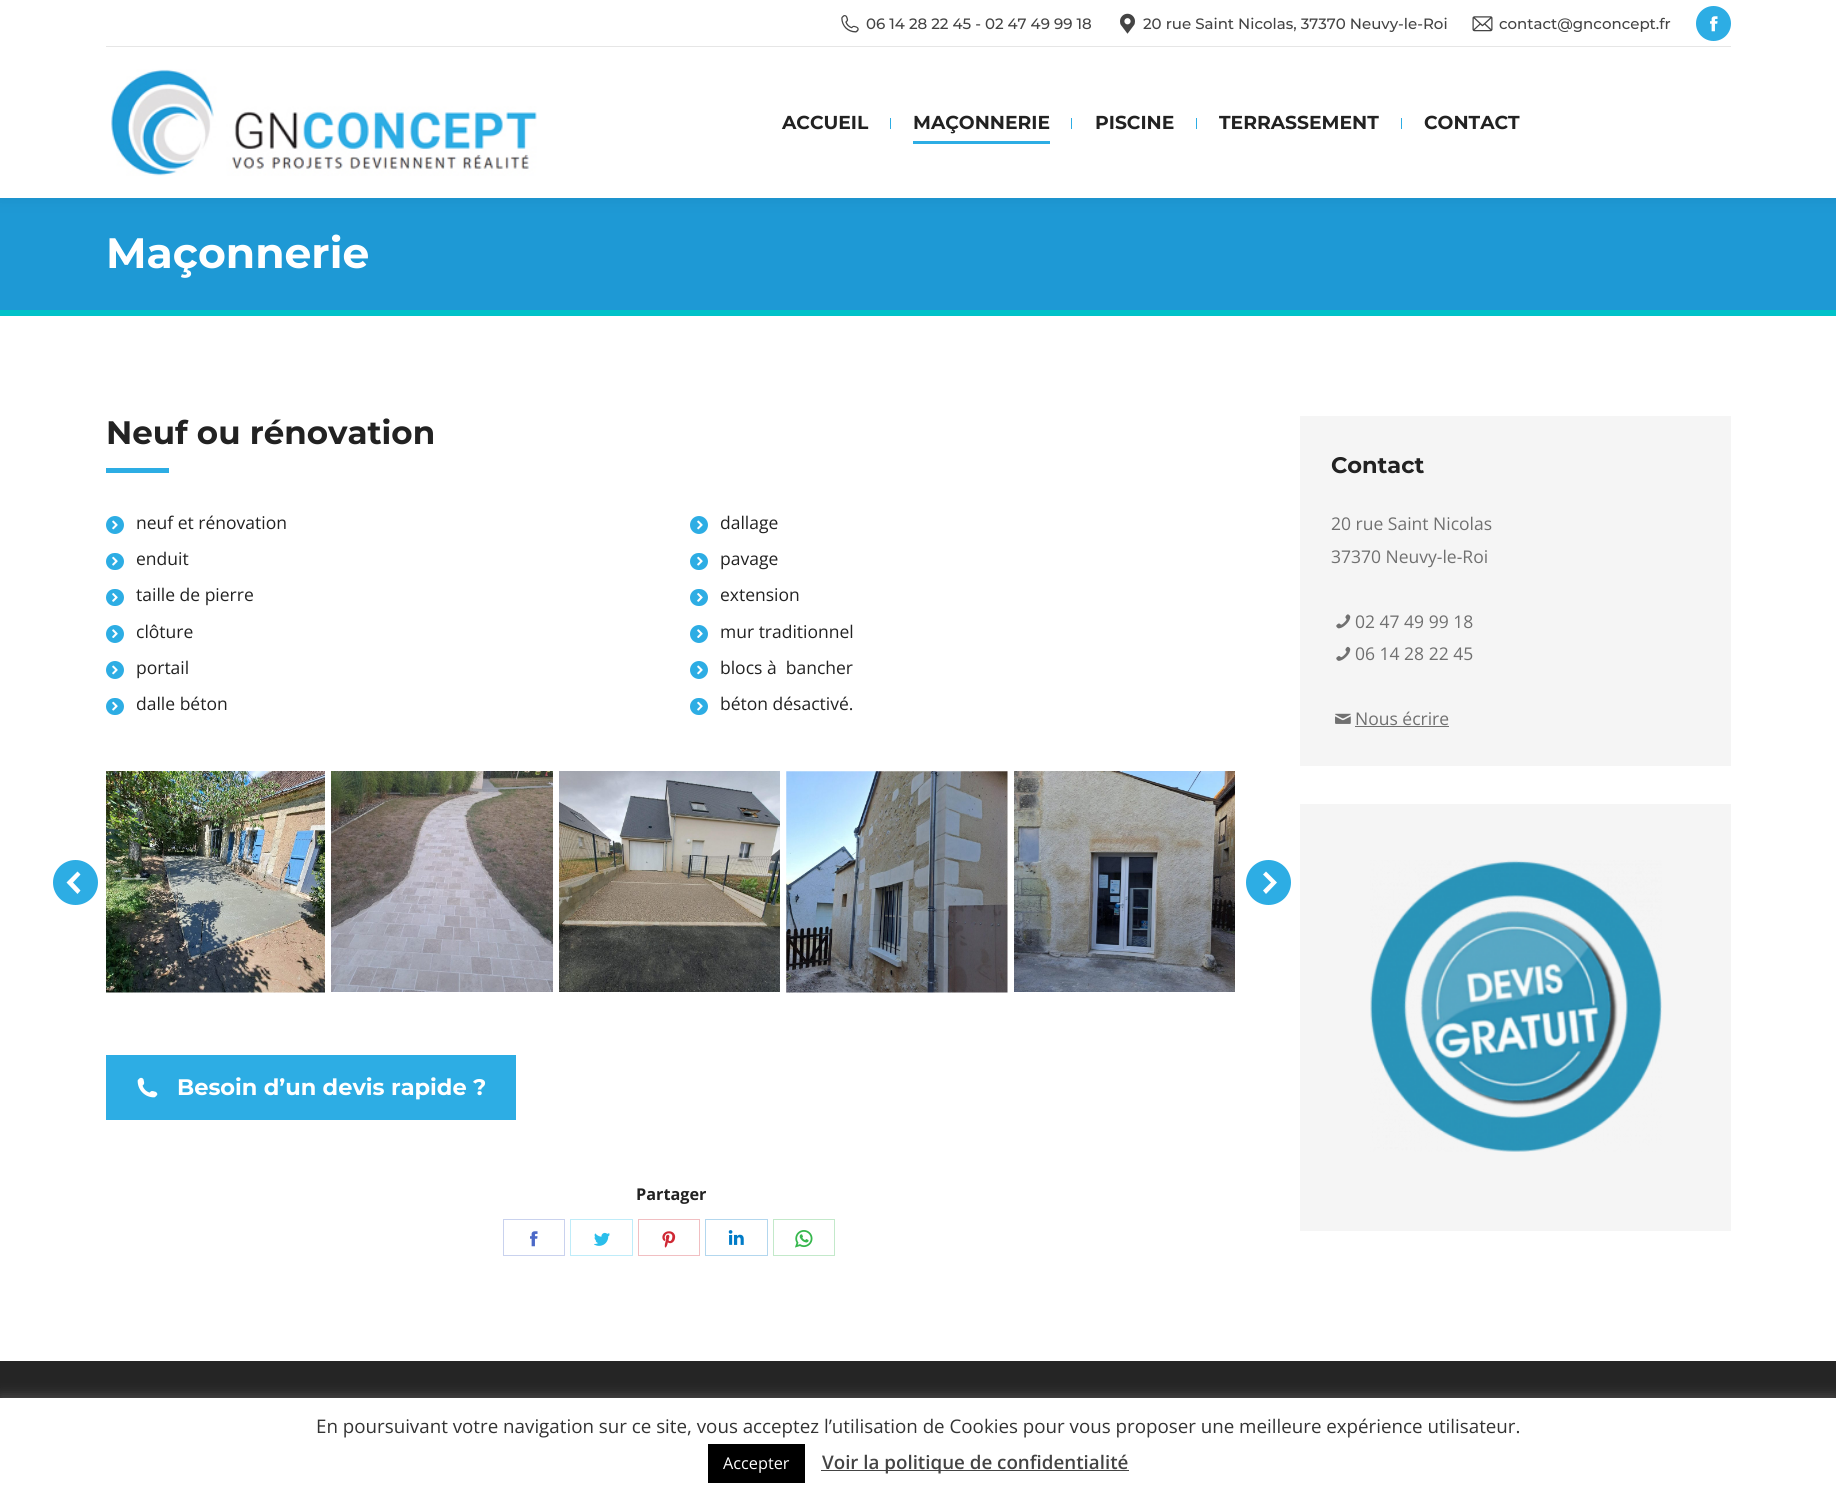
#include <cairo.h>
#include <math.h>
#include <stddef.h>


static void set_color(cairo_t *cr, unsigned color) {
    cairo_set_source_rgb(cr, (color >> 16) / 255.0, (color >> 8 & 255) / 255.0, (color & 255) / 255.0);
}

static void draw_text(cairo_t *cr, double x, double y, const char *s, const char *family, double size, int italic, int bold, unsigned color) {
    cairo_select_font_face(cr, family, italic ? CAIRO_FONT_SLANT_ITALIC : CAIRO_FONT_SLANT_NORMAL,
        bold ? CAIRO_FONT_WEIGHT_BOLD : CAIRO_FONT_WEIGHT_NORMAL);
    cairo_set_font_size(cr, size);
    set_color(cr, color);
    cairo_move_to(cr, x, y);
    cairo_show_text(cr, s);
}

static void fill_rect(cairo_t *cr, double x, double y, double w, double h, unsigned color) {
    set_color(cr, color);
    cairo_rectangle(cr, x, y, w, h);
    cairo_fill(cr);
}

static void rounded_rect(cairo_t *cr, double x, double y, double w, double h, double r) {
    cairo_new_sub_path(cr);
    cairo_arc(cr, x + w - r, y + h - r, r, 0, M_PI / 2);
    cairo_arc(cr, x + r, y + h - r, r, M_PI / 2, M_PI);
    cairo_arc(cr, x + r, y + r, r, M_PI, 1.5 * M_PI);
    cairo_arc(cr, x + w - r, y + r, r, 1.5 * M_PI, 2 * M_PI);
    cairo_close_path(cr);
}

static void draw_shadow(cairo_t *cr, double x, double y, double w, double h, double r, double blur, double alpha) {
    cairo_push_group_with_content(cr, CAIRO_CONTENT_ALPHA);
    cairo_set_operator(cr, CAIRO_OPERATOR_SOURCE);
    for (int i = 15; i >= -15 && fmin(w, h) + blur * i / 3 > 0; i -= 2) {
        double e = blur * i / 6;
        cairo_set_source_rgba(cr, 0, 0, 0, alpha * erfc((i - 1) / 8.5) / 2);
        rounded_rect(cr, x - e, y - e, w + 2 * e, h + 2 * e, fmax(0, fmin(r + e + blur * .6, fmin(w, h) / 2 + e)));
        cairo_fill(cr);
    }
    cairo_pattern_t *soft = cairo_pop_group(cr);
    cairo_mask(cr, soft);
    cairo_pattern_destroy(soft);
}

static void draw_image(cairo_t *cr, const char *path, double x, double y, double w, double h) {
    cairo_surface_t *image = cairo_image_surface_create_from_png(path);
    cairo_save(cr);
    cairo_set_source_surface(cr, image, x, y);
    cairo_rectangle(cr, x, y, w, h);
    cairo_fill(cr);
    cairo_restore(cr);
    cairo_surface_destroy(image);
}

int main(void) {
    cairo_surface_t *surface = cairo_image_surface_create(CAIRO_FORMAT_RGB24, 1836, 1503);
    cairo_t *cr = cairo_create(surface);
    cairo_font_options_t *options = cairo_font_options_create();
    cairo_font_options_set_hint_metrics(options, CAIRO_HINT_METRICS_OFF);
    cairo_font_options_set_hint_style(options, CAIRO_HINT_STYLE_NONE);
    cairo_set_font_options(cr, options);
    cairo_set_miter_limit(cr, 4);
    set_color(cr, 0xFFFFFF);
    cairo_paint(cr);
    fill_rect(cr, 0, 198, 1836, 112, 0x1E99D5);
    set_color(cr, 0x000000);
    draw_shadow(cr, -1, -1, 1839, 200, 0, 9.5, 0.07);
    fill_rect(cr, 0, 0, 1836, 198, 0xFFFFFF);
    draw_image(cr, "assets/img1.png", 841, 15, 18, 18);
    draw_text(cr, 866, 29, "06 14 28 22 45 - 02 47 49 99 18", "Montserrat Medium", 15, 0, 0, 0x444444);
    draw_image(cr, "assets/img2.png", 1120, 13, 15, 21);
    draw_text(cr, 1143, 29, "20 rue Saint Nicolas, 37370 Neuvy-le-Roi", "Montserrat Medium", 15, 0, 0, 0x444444);
    draw_image(cr, "assets/img3.png", 1472, 16, 21, 16);
    draw_text(cr, 1499, 29, "contact@gnconcept.fr", "Montserrat Medium", 15, 0, 0, 0x444444);
    set_color(cr, 0x2DADE4);
    cairo_new_path(cr);
    cairo_arc(cr, 1713.5, 23.5, 17.5, 0, 2 * M_PI);
    cairo_fill(cr);
    draw_image(cr, "assets/img4.png", 1710, 16, 8, 16);
    fill_rect(cr, 106, 46, 1625, 1, 0xE6E6E6);
    draw_image(cr, "assets/img5.png", 111, 69, 426, 107);
    draw_text(cr, 782, 129, "ACCUEIL", "Montserrat", 18.75, 0, 1, 0x222222);
    fill_rect(cr, 890, 118, 1, 11, 0x2DADE4);
    draw_text(cr, 913, 129, "MAÇONNERIE", "Montserrat", 18.75, 0, 1, 0x222222);
    fill_rect(cr, 913, 141, 137, 3, 0x2DADE4);
    fill_rect(cr, 1071, 118, 1, 11, 0x2DADE4);
    draw_text(cr, 1095, 129, "PISCINE", "Montserrat", 18.75, 0, 1, 0x222222);
    fill_rect(cr, 1196, 118, 1, 11, 0x2DADE4);
    draw_text(cr, 1219, 129, "TERRASSEMENT", "Montserrat", 18.75, 0, 1, 0x222222);
    fill_rect(cr, 1401, 118, 1, 11, 0x2DADE4);
    draw_text(cr, 1424, 129, "CONTACT", "Montserrat", 18.75, 0, 1, 0x222222);
    fill_rect(cr, 0, 310, 1836, 6, 0x00C2C9);
    draw_text(cr, 106, 268, "Maçonnerie", "Montserrat", 42.5, 0, 1, 0xFFFFFF);
    draw_text(cr, 106, 444, "Neuf ou rénovation", "Montserrat", 32.5, 0, 1, 0x222222);
    fill_rect(cr, 106, 468, 63, 5, 0x2DADE4);
    cairo_new_path(cr);
    cairo_arc(cr, 115, 525, 9, 0, 2 * M_PI);
    cairo_fill(cr);
    draw_text(cr, 136, 529, "neuf et rénovation", "Open Sans", 17.5, 0, 0, 0x222222);
    draw_image(cr, "assets/img6.png", 112, 520, 6, 10);
    set_color(cr, 0x2DADE4);
    rounded_rect(cr, 106, 553, 18, 17, 8.5);
    cairo_fill(cr);
    draw_text(cr, 136, 565, "enduit", "Open Sans", 17.5, 0, 0, 0x222222);
    draw_image(cr, "assets/img7.png", 112, 556, 6, 10);
    set_color(cr, 0x2DADE4);
    rounded_rect(cr, 106, 589, 18, 17, 8.5);
    cairo_fill(cr);
    draw_text(cr, 136, 601, "taille de pierre", "Open Sans", 17.5, 0, 0, 0x222222);
    draw_image(cr, "assets/img8.png", 112, 593, 6, 9);
    set_color(cr, 0x2DADE4);
    cairo_arc(cr, 115, 634, 9, 0, 2 * M_PI);
    cairo_fill(cr);
    draw_text(cr, 136, 638, "clôture", "Open Sans", 17.5, 0, 0, 0x222222);
    draw_image(cr, "assets/img9.png", 112, 629, 6, 9);
    set_color(cr, 0x2DADE4);
    cairo_arc(cr, 115, 670, 9, 0, 2 * M_PI);
    cairo_fill(cr);
    draw_text(cr, 136, 674, "portail", "Open Sans", 17.5, 0, 0, 0x222222);
    draw_image(cr, "assets/img6.png", 112, 665, 6, 10);
    set_color(cr, 0x2DADE4);
    rounded_rect(cr, 106, 698, 18, 17, 8.5);
    cairo_fill(cr);
    draw_text(cr, 136, 710, "dalle béton", "Open Sans", 17.5, 0, 0, 0x222222);
    draw_image(cr, "assets/img7.png", 112, 701, 6, 10);
    set_color(cr, 0x2DADE4);
    cairo_arc(cr, 699, 525, 9, 0, 2 * M_PI);
    cairo_fill(cr);
    draw_text(cr, 720, 529, "dallage", "Open Sans", 17.5, 0, 0, 0x222222);
    draw_image(cr, "assets/img6.png", 697, 520, 6, 10);
    set_color(cr, 0x2DADE4);
    rounded_rect(cr, 690, 553, 18, 17, 8.5);
    cairo_fill(cr);
    draw_text(cr, 720, 565, "pavage", "Open Sans", 17.5, 0, 0, 0x222222);
    draw_image(cr, "assets/img7.png", 697, 556, 6, 10);
    set_color(cr, 0x2DADE4);
    rounded_rect(cr, 690, 589, 18, 17, 8.5);
    cairo_fill(cr);
    draw_text(cr, 720, 601, "extension", "Open Sans", 17.5, 0, 0, 0x222222);
    draw_image(cr, "assets/img8.png", 697, 593, 6, 9);
    set_color(cr, 0x2DADE4);
    cairo_arc(cr, 699, 634, 9, 0, 2 * M_PI);
    cairo_fill(cr);
    draw_text(cr, 720, 638, "mur traditionnel", "Open Sans", 17.5, 0, 0, 0x222222);
    draw_image(cr, "assets/img9.png", 697, 629, 6, 9);
    set_color(cr, 0x2DADE4);
    cairo_arc(cr, 699, 670, 9, 0, 2 * M_PI);
    cairo_fill(cr);
    draw_text(cr, 720, 674, "blocs à  bancher", "Open Sans", 17.5, 0, 0, 0x222222);
    draw_image(cr, "assets/img6.png", 697, 665, 6, 10);
    set_color(cr, 0x2DADE4);
    rounded_rect(cr, 690, 698, 18, 17, 8.5);
    cairo_fill(cr);
    draw_text(cr, 720, 710, "béton désactivé.", "Open Sans", 17.5, 0, 0, 0x222222);
    draw_image(cr, "assets/img7.png", 697, 701, 6, 10);
    draw_image(cr, "assets/img10.png", 106, 771, 219, 222);
    draw_image(cr, "assets/img11.png", 331, 771, 222, 221);
    draw_image(cr, "assets/img12.png", 559, 771, 221, 221);
    draw_image(cr, "assets/img13.png", 786, 771, 222, 222);
    draw_image(cr, "assets/img14.png", 1014, 771, 221, 221);
    set_color(cr, 0x2DADE4);
    cairo_arc(cr, 75.5, 882.5, 22.5, 0, 2 * M_PI);
    cairo_fill(cr);
    set_color(cr, 0xFFFFFF);
    cairo_new_path(cr);
    cairo_move_to(cr, 80.5, 890.5);
    cairo_line_to(cr, 73, 882.5);
    cairo_line_to(cr, 80.5, 874.5);
    cairo_line_to(cr, 77.5, 871.5);
    cairo_line_to(cr, 66.5, 882.5);
    cairo_line_to(cr, 77.5, 894);
    cairo_close_path(cr);
    cairo_fill(cr);
    set_color(cr, 0x2DADE4);
    cairo_arc(cr, 1268.5, 882.5, 22.5, 0, 2 * M_PI);
    cairo_fill(cr);
    set_color(cr, 0xFFFFFF);
    cairo_new_path(cr);
    cairo_move_to(cr, 1266, 894);
    cairo_line_to(cr, 1277, 882.5);
    cairo_line_to(cr, 1266, 871.5);
    cairo_line_to(cr, 1263, 874.5);
    cairo_line_to(cr, 1271, 882.5);
    cairo_line_to(cr, 1263, 890.5);
    cairo_close_path(cr);
    cairo_fill(cr);
    fill_rect(cr, 106, 1055, 410, 65, 0x2DADE4);
    draw_image(cr, "assets/img15.png", 137, 1077, 21, 21);
    draw_text(cr, 177, 1095, "Besoin d’un devis rapide ?", "Montserrat", 22.5, 0, 1, 0xFFFFFF);
    draw_text(cr, 636, 1200, "Partager", "Open Sans", 16.25, 0, 1, 0x222222);
    cairo_rectangle(cr, 503.5, 1219.5, 61, 36);
    set_color(cr, 0xC9D2EE);
    cairo_set_line_width(cr, 1);
    cairo_stroke(cr);
    draw_image(cr, "assets/img16.png", 530, 1231, 8, 16);
    cairo_rectangle(cr, 570.5, 1219.5, 62, 36);
    set_color(cr, 0xBFECF9);
    cairo_stroke(cr);
    draw_image(cr, "assets/img17.png", 594, 1232, 16, 14);
    cairo_rectangle(cr, 638.5, 1219.5, 61, 36);
    set_color(cr, 0xF1BFC2);
    cairo_stroke(cr);
    draw_image(cr, "assets/img18.png", 662, 1231, 14, 17);
    cairo_rectangle(cr, 705.5, 1219.5, 62, 36);
    set_color(cr, 0xB3D7EE);
    cairo_stroke(cr);
    draw_image(cr, "assets/img19.png", 728, 1230, 16, 15);
    cairo_rectangle(cr, 773.5, 1219.5, 61, 36);
    set_color(cr, 0xC3E9CA);
    cairo_stroke(cr);
    draw_image(cr, "assets/img20.png", 795, 1230, 18, 18);
    fill_rect(cr, 1300, 416, 431, 350, 0xF5F5F5);
    draw_text(cr, 1331, 473, "Contact", "Montserrat", 22.5, 0, 1, 0x222222);
    draw_text(cr, 1331, 530, "20 rue Saint Nicolas", "Open Sans", 17.5, 0, 0, 0x707070);
    draw_text(cr, 1331, 563, "37370 Neuvy-le-Roi", "Open Sans", 17.5, 0, 0, 0x707070);
    draw_image(cr, "assets/img21.png", 1336, 614, 15, 15);
    draw_text(cr, 1355, 628, "02 47 49 99 18", "Open Sans", 17.5, 0, 0, 0x707070);
    draw_image(cr, "assets/img22.png", 1336, 646, 15, 15);
    draw_text(cr, 1355, 660, "06 14 28 22 45", "Open Sans", 17.5, 0, 0, 0x707070);
    draw_image(cr, "assets/img23.png", 1335, 713, 16, 11);
    draw_text(cr, 1355, 725, "Nous écrire", "Open Sans", 17.5, 0, 0, 0x707070);
    fill_rect(cr, 1355, 726, 94, 1, 0x707070);
    fill_rect(cr, 1300, 804, 431, 427, 0xF5F5F5);
    draw_image(cr, "assets/img24.png", 1370, 860, 292, 292);
    fill_rect(cr, 0, 1361, 1836, 37, 0x252525);
    set_color(cr, 0xACABAB);
    draw_shadow(cr, 0, 1396, 1836, 107, 0, 6, 0.3);
    fill_rect(cr, 0, 1398, 1836, 105, 0xFFFFFF);
    draw_text(cr, 316, 1433, "En poursuivant votre navigation sur ce site, vous acceptez l’utilisation de Cookies pour vous proposer une meilleure expérience utilisateur.", "Open Sans", 18.75, 0, 0, 0x333333);
    fill_rect(cr, 708, 1444, 97, 39, 0x000000);
    draw_text(cr, 723, 1469, "Accepter", "Open Sans", 16.25, 0, 0, 0xFFFFFF);
    fill_rect(cr, 821, 1470, 308, 1, 0x444444);
    draw_text(cr, 822, 1469, "Voir la politique de confidentialité", "Open Sans SemiBold", 18.75, 0, 0, 0x444444);
    cairo_surface_write_to_png(surface, "output.png");
    cairo_font_options_destroy(options);
    cairo_destroy(cr);
    cairo_surface_destroy(surface);
    return 0;
}
